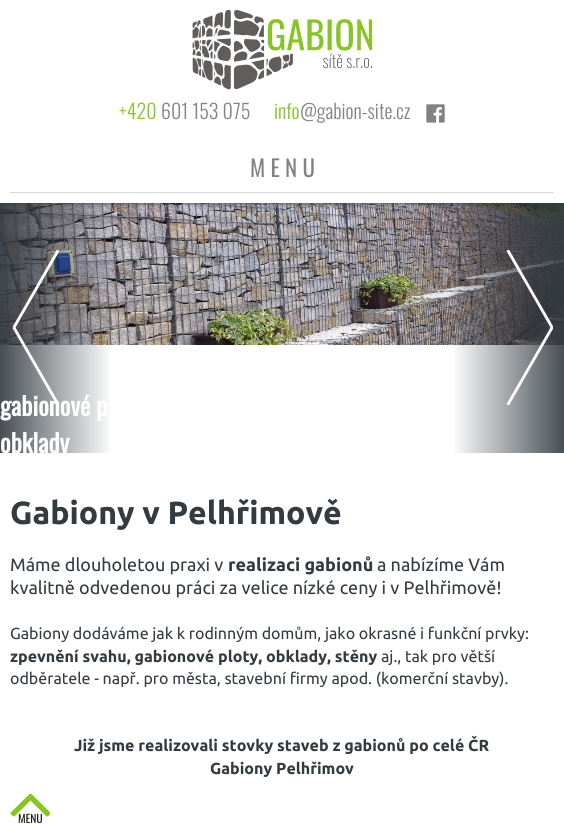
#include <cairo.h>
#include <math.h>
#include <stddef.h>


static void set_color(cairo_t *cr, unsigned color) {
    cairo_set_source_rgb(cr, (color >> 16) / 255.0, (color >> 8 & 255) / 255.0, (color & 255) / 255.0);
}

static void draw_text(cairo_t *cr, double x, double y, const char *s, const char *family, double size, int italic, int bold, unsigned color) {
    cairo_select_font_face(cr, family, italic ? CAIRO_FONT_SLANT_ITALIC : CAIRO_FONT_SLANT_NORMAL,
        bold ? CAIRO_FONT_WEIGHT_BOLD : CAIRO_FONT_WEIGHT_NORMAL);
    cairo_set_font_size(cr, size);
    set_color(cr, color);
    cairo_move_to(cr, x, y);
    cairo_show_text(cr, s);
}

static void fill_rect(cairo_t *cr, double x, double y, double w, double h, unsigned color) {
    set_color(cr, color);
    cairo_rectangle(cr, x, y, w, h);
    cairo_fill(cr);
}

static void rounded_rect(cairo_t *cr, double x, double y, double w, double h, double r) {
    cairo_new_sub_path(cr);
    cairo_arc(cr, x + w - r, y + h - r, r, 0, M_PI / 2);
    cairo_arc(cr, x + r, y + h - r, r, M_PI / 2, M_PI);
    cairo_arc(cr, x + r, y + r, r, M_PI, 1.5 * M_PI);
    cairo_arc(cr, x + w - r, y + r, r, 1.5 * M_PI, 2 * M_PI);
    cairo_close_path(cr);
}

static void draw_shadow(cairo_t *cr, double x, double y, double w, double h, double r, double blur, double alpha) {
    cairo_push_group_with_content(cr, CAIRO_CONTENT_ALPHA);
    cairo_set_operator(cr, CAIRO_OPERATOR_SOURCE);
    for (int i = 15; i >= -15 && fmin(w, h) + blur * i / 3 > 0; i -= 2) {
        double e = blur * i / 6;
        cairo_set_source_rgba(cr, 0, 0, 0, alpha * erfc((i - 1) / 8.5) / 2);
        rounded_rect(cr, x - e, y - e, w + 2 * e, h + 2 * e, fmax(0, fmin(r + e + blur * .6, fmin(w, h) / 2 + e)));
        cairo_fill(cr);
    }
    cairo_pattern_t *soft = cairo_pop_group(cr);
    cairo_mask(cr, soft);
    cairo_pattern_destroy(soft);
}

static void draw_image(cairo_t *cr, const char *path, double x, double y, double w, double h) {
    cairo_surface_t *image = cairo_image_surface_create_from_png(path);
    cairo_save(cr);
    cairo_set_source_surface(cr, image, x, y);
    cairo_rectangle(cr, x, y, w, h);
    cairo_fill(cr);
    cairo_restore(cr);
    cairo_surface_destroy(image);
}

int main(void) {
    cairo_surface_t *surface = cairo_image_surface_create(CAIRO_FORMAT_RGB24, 564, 833);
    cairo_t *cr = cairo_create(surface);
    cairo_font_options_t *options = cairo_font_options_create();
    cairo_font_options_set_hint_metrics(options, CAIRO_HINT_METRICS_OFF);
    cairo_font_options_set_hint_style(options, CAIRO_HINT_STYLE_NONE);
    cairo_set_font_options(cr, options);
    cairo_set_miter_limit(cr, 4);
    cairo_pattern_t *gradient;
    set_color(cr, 0xFFFFFF);
    cairo_paint(cr);
    draw_image(cr, "assets/img3.png", 0, 203, 564, 142);
    gradient = cairo_pattern_create_linear(113, 328, 0, 328);
    cairo_pattern_add_color_stop_rgba(gradient, 0, 0.2, 0.231, 0.255, 0);
    cairo_pattern_add_color_stop_rgba(gradient, 1, 0.2, 0.231, 0.255, 0.9);
    cairo_set_source(cr, gradient);
    cairo_pattern_destroy(gradient);
    cairo_rectangle(cr, 0, 203, 110, 250);
    cairo_fill(cr);
    gradient = cairo_pattern_create_linear(451, 328, 564, 328);
    cairo_pattern_add_color_stop_rgba(gradient, 0, 0.2, 0.231, 0.255, 0);
    cairo_pattern_add_color_stop_rgba(gradient, 1, 0.2, 0.231, 0.255, 0.9);
    cairo_set_source(cr, gradient);
    cairo_pattern_destroy(gradient);
    cairo_rectangle(cr, 454, 203, 110, 250);
    cairo_fill(cr);
    cairo_save(cr);
    cairo_rectangle(cr, 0, 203, 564, 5);
    cairo_clip(cr);
    set_color(cr, 0x333B41);
    draw_shadow(cr, 0, 0, 564, 203, 0, 2.5, 1);
    cairo_restore(cr);
    draw_image(cr, "assets/img1.png", 192, 10, 180, 80);
    draw_text(cr, 119, 119, "+420", "Oswald Light", 20, 0, 0, 0x88C425);
    draw_text(cr, 161, 119, "601 153 075", "Oswald Light", 20, 0, 0, 0x838281);
    draw_text(cr, 274, 119, "info", "Oswald Light", 20, 0, 0, 0x88C425);
    draw_text(cr, 300, 119, "@gabion-site.cz", "Oswald Light", 20, 0, 0, 0x838281);
    draw_image(cr, "assets/img2.png", 426, 104, 19, 19);
    fill_rect(cr, 10, 192, 544, 1, 0xD9D9D9);
    draw_text(cr, 250, 177, "M E N U", "Oswald", 23, 0, 0, 0x838281);
    draw_text(cr, 0, 416, "gabionové p", "Oswald", 25, 0, 1, 0xFFFFFF);
    draw_image(cr, "assets/img4.png", 12, 250, 47, 155);
    draw_image(cr, "assets/img5.png", 506, 250, 47, 156);
    cairo_save(cr);
    cairo_rectangle(cr, 0, 203, 564, 250);
    cairo_clip(cr);
    draw_text(cr, 0, 453, "obklady", "Oswald", 25, 0, 1, 0xFFFFFF);
    cairo_restore(cr);
    draw_text(cr, 10, 524, "Gabiony v Pelhřimově", "Ubuntu", 32, 0, 1, 0x333B41);
    draw_text(cr, 10, 571, "Máme dlouholetou praxi v", "Ubuntu", 18, 0, 0, 0x333B41);
    draw_text(cr, 228, 571, "realizaci gabionů", "Ubuntu", 18, 0, 1, 0x333B41);
    draw_text(cr, 377, 571, "a nabízíme Vám", "Ubuntu", 18, 0, 0, 0x333B41);
    draw_text(cr, 10, 594, "kvalitně odvedenou práci za velice nízké ceny i v Pelhřimově!", "Ubuntu", 18, 0, 0, 0x333B41);
    draw_text(cr, 10, 639, "Gabiony dodáváme jak k rodinným domům, jako okrasné i funkční prvky:", "Ubuntu", 16, 0, 0, 0x333B41);
    draw_text(cr, 10, 662, "zpevnění svahu, gabionové ploty, obklady, stěny", "Ubuntu", 16, 0, 1, 0x333B41);
    draw_text(cr, 381, 662, "aj., tak pro větší", "Ubuntu", 16, 0, 0, 0x333B41);
    draw_text(cr, 10, 684, "odběratele - např. pro města, stavební firmy apod. (komerční stavby).", "Ubuntu", 16, 0, 0, 0x333B41);
    draw_text(cr, 74, 751, "Již jsme realizovali stovky staveb z gabionů po celé ČR", "Ubuntu", 16, 0, 1, 0x333B41);
    draw_text(cr, 210, 774, "Gabiony Pelhřimov", "Ubuntu", 16, 0, 1, 0x333B41);
    draw_image(cr, "assets/img6.png", 10, 794, 40, 29);
    cairo_surface_write_to_png(surface, "output.png");
    cairo_font_options_destroy(options);
    cairo_destroy(cr);
    cairo_surface_destroy(surface);
    return 0;
}
